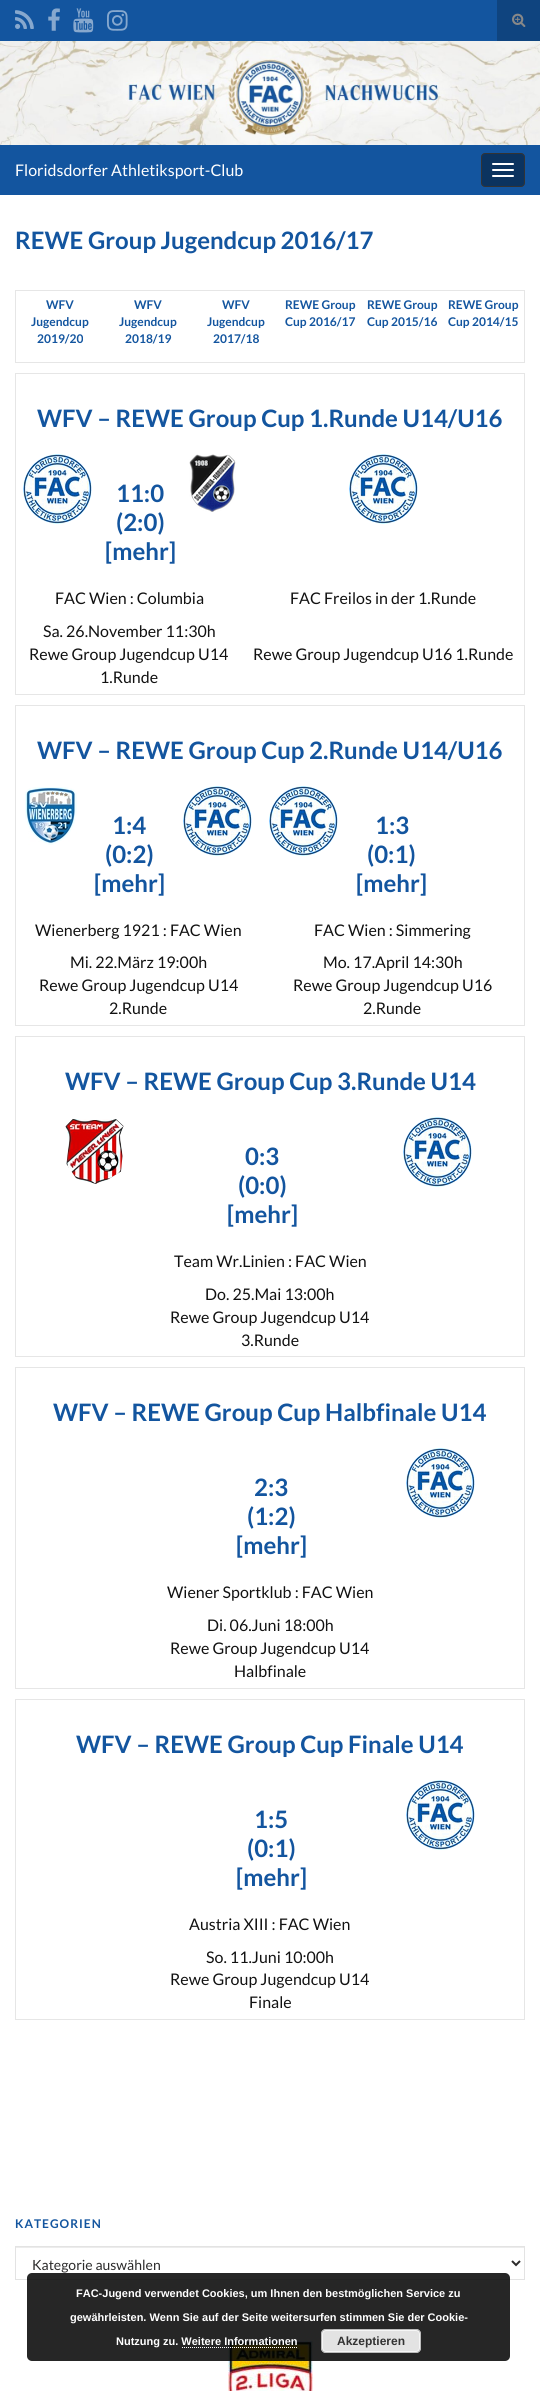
#include <cairo.h>
#include <math.h>
#include <stddef.h>


static void set_color(cairo_t *cr, unsigned color) {
    cairo_set_source_rgb(cr, (color >> 16) / 255.0, (color >> 8 & 255) / 255.0, (color & 255) / 255.0);
}

static void draw_text(cairo_t *cr, double x, double y, const char *s, const char *family, double size, int italic, int bold, unsigned color) {
    cairo_select_font_face(cr, family, italic ? CAIRO_FONT_SLANT_ITALIC : CAIRO_FONT_SLANT_NORMAL,
        bold ? CAIRO_FONT_WEIGHT_BOLD : CAIRO_FONT_WEIGHT_NORMAL);
    cairo_set_font_size(cr, size);
    set_color(cr, color);
    cairo_move_to(cr, x, y);
    cairo_show_text(cr, s);
}

static void draw_spaced(cairo_t *cr, double x, double y, const char *s, double letter, double word) {
    cairo_move_to(cr, x, y);
    while (*s) {
        char ch[5] = {0};
        int n = 0;
        do ch[n++] = *s++; while ((*s & 0xC0) == 0x80);
        cairo_show_text(cr, ch);
        cairo_rel_move_to(cr, letter + word * (*ch == ' '), 0);
    }
}

static void fill_rect(cairo_t *cr, double x, double y, double w, double h, unsigned color) {
    set_color(cr, color);
    cairo_rectangle(cr, x, y, w, h);
    cairo_fill(cr);
}

static void rounded_rect(cairo_t *cr, double x, double y, double w, double h, double r) {
    cairo_new_sub_path(cr);
    cairo_arc(cr, x + w - r, y + h - r, r, 0, M_PI / 2);
    cairo_arc(cr, x + r, y + h - r, r, M_PI / 2, M_PI);
    cairo_arc(cr, x + r, y + r, r, M_PI, 1.5 * M_PI);
    cairo_arc(cr, x + w - r, y + r, r, 1.5 * M_PI, 2 * M_PI);
    cairo_close_path(cr);
}

static void draw_image(cairo_t *cr, const char *path, double x, double y, double w, double h) {
    cairo_surface_t *image = cairo_image_surface_create_from_png(path);
    cairo_save(cr);
    cairo_set_source_surface(cr, image, x, y);
    cairo_rectangle(cr, x, y, w, h);
    cairo_fill(cr);
    cairo_restore(cr);
    cairo_surface_destroy(image);
}

int main(void) {
    cairo_surface_t *surface = cairo_image_surface_create(CAIRO_FORMAT_RGB24, 540, 2391);
    cairo_t *cr = cairo_create(surface);
    cairo_font_options_t *options = cairo_font_options_create();
    cairo_font_options_set_hint_metrics(options, CAIRO_HINT_METRICS_OFF);
    cairo_font_options_set_hint_style(options, CAIRO_HINT_STYLE_NONE);
    cairo_set_font_options(cr, options);
    cairo_set_miter_limit(cr, 4);
    set_color(cr, 0xFFFFFF);
    cairo_paint(cr);
    fill_rect(cr, 0, 0, 497, 41, 0x13559F);
    draw_image(cr, "assets/img1.png", 15, 10, 19, 19);
    draw_image(cr, "assets/img2.png", 48, 8, 12, 23);
    draw_image(cr, "assets/img3.png", 73, 8, 21, 25);
    draw_image(cr, "assets/img4.png", 107, 10, 21, 21);
    fill_rect(cr, 497, 0, 43, 41, 0x0F447F);
    draw_image(cr, "assets/img5.png", 512, 13, 14, 14);
    draw_image(cr, "assets/img6.png", 0, 41, 540, 104);
    fill_rect(cr, 0, 145, 540, 50, 0x13559F);
    draw_text(cr, 15, 176, "Floridsdorfer Athletiksport-Club", "Lato", 16, 0, 0, 0xFFFFFF);
    set_color(cr, 0x0B335F);
    rounded_rect(cr, 481.5, 153.5, 43, 33, 3.5);
    cairo_fill_preserve(cr);
    set_color(cr, 0x333333);
    cairo_set_line_width(cr, 1);
    cairo_stroke(cr);
    set_color(cr, 0xFFFFFF);
    rounded_rect(cr, 492, 163, 22, 2, 1);
    cairo_fill(cr);
    rounded_rect(cr, 492, 169, 22, 2, 1);
    cairo_fill(cr);
    rounded_rect(cr, 492, 175, 22, 2, 1);
    cairo_fill(cr);
    draw_text(cr, 15, 249, "REWE Group Jugendcup 2016/17", "Lato", 24, 0, 1, 0x13559F);
    fill_rect(cr, 15, 290, 510, 1, 0xE6E6E6);
    fill_rect(cr, 524, 290, 1, 73, 0xE6E6E6);
    fill_rect(cr, 15, 362, 510, 1, 0xE6E6E6);
    fill_rect(cr, 15, 290, 1, 73, 0xE6E6E6);
    draw_text(cr, 46, 309, "WFV", "Lato", 12, 0, 1, 0x13559F);
    draw_text(cr, 31, 326, "Jugendcup", "Lato", 12, 0, 1, 0x13559F);
    draw_text(cr, 37, 343, "2019/20", "Lato", 12, 0, 1, 0x13559F);
    draw_text(cr, 134, 309, "WFV", "Lato", 12, 0, 1, 0x13559F);
    draw_text(cr, 119, 326, "Jugendcup", "Lato", 12, 0, 1, 0x13559F);
    draw_text(cr, 125, 343, "2018/19", "Lato", 12, 0, 1, 0x13559F);
    draw_text(cr, 222, 309, "WFV", "Lato", 12, 0, 1, 0x13559F);
    draw_text(cr, 207, 326, "Jugendcup", "Lato", 12, 0, 1, 0x13559F);
    draw_text(cr, 213, 343, "2017/18", "Lato", 12, 0, 1, 0x13559F);
    draw_text(cr, 285, 309, "REWE Group", "Lato", 12, 0, 1, 0x13559F);
    draw_text(cr, 285, 326, "Cup 2016/17", "Lato", 12, 0, 1, 0x13559F);
    draw_text(cr, 367, 309, "REWE Group", "Lato", 12, 0, 1, 0x13559F);
    draw_text(cr, 367, 326, "Cup 2015/16", "Lato", 12, 0, 1, 0x13559F);
    draw_text(cr, 448, 309, "REWE Group", "Lato", 12, 0, 1, 0x13559F);
    draw_text(cr, 448, 326, "Cup 2014/15", "Lato", 12, 0, 1, 0x13559F);
    fill_rect(cr, 15, 373, 510, 1, 0xE6E6E6);
    fill_rect(cr, 524, 373, 1, 322, 0xE6E6E6);
    fill_rect(cr, 15, 694, 510, 1, 0xE6E6E6);
    fill_rect(cr, 15, 373, 1, 322, 0xE6E6E6);
    draw_text(cr, 37, 427, "WFV – REWE Group Cup 1.Runde U14/U16", "Lato", 24, 0, 1, 0x13559F);
    draw_image(cr, "assets/img7.png", 23, 454, 69, 70);
    draw_text(cr, 116, 502, "11:0", "Lato", 24, 0, 1, 0x13559F);
    draw_text(cr, 116, 531, "(2:0)", "Lato", 24, 0, 1, 0x13559F);
    draw_text(cr, 105, 560, "[mehr]", "Lato", 24, 0, 1, 0x13559F);
    draw_image(cr, "assets/img8.png", 189, 454, 47, 58);
    draw_image(cr, "assets/img7.png", 349, 454, 69, 70);
    draw_text(cr, 55, 604, "FAC Wien : Columbia", "Lato", 16, 0, 0, 0x111111);
    draw_text(cr, 290, 604, "FAC Freilos in der 1.Runde", "Lato", 16, 0, 0, 0x111111);
    draw_text(cr, 43, 637, "Sa. 26.November 11:30h", "Lato", 16, 0, 0, 0x111111);
    draw_text(cr, 29, 660, "Rewe Group Jugendcup U14", "Lato", 16, 0, 0, 0x111111);
    draw_text(cr, 100, 683, "1.Runde", "Lato", 16, 0, 0, 0x111111);
    draw_text(cr, 253, 660, "Rewe Group Jugendcup U16 1.Runde", "Lato", 16, 0, 0, 0x111111);
    fill_rect(cr, 15, 705, 510, 1, 0xE6E6E6);
    fill_rect(cr, 524, 705, 1, 321, 0xE6E6E6);
    fill_rect(cr, 15, 1025, 510, 1, 0xE6E6E6);
    fill_rect(cr, 15, 705, 1, 321, 0xE6E6E6);
    draw_text(cr, 37, 759, "WFV – REWE Group Cup 2.Runde U14/U16", "Lato", 24, 0, 1, 0x13559F);
    draw_image(cr, "assets/img9.png", 25, 787, 52, 58);
    draw_text(cr, 112, 834, "1:4", "Lato", 24, 0, 1, 0x13559F);
    draw_text(cr, 105, 863, "(0:2)", "Lato", 24, 0, 1, 0x13559F);
    draw_text(cr, 94, 892, "[mehr]", "Lato", 24, 0, 1, 0x13559F);
    draw_image(cr, "assets/img7.png", 183, 786, 69, 70);
    draw_image(cr, "assets/img7.png", 269, 786, 69, 70);
    draw_text(cr, 375, 834, "1:3", "Lato", 24, 0, 1, 0x13559F);
    draw_text(cr, 367, 863, "(0:1)", "Lato", 24, 0, 1, 0x13559F);
    draw_text(cr, 356, 892, "[mehr]", "Lato", 24, 0, 1, 0x13559F);
    draw_text(cr, 35, 936, "Wienerberg 1921 : FAC Wien", "Lato", 16, 0, 0, 0x111111);
    draw_text(cr, 314, 936, "FAC Wien : Simmering", "Lato", 16, 0, 0, 0x111111);
    draw_text(cr, 70, 968, "Mi. 22.März 19:00h", "Lato", 16, 0, 0, 0x111111);
    draw_text(cr, 39, 991, "Rewe Group Jugendcup U14", "Lato", 16, 0, 0, 0x111111);
    draw_text(cr, 109, 1014, "2.Runde", "Lato", 16, 0, 0, 0x111111);
    draw_text(cr, 323, 968, "Mo. 17.April 14:30h", "Lato", 16, 0, 0, 0x111111);
    draw_text(cr, 293, 991, "Rewe Group Jugendcup U16", "Lato", 16, 0, 0, 0x111111);
    draw_text(cr, 363, 1014, "2.Runde", "Lato", 16, 0, 0, 0x111111);
    fill_rect(cr, 15, 1036, 510, 1, 0xE6E6E6);
    fill_rect(cr, 524, 1036, 1, 321, 0xE6E6E6);
    fill_rect(cr, 15, 1356, 510, 1, 0xE6E6E6);
    fill_rect(cr, 15, 1036, 1, 321, 0xE6E6E6);
    draw_text(cr, 65, 1090, "WFV – REWE Group Cup 3.Runde U14", "Lato", 24, 0, 1, 0x13559F);
    draw_image(cr, "assets/img10.png", 65, 1119, 59, 65);
    draw_text(cr, 245, 1165, "0:3", "Lato", 24, 0, 1, 0x13559F);
    draw_text(cr, 238, 1194, "(0:0)", "Lato", 24, 0, 1, 0x13559F);
    draw_text(cr, 227, 1223, "[mehr]", "Lato", 24, 0, 1, 0x13559F);
    draw_image(cr, "assets/img7.png", 403, 1117, 69, 70);
    draw_text(cr, 174, 1267, "Team Wr.Linien : FAC Wien", "Lato", 16, 0, 0, 0x111111);
    draw_text(cr, 205, 1300, "Do. 25.Mai 13:00h", "Lato", 16, 0, 0, 0x111111);
    draw_text(cr, 170, 1323, "Rewe Group Jugendcup U14", "Lato", 16, 0, 0, 0x111111);
    draw_text(cr, 241, 1346, "3.Runde", "Lato", 16, 0, 0, 0x111111);
    fill_rect(cr, 15, 1367, 510, 1, 0xE6E6E6);
    fill_rect(cr, 524, 1367, 1, 322, 0xE6E6E6);
    fill_rect(cr, 15, 1688, 510, 1, 0xE6E6E6);
    fill_rect(cr, 15, 1367, 1, 322, 0xE6E6E6);
    draw_text(cr, 53, 1421, "WFV – REWE Group Cup Halbfinale U14", "Lato", 24, 0, 1, 0x13559F);
    draw_text(cr, 254, 1496, "2:3", "Lato", 24, 0, 1, 0x13559F);
    draw_text(cr, 247, 1525, "(1:2)", "Lato", 24, 0, 1, 0x13559F);
    draw_text(cr, 236, 1554, "[mehr]", "Lato", 24, 0, 1, 0x13559F);
    draw_image(cr, "assets/img7.png", 406, 1448, 69, 70);
    draw_text(cr, 167, 1598, "Wiener Sportklub : FAC Wien", "Lato", 16, 0, 0, 0x111111);
    draw_text(cr, 207, 1631, "Di. 06.Juni 18:00h", "Lato", 16, 0, 0, 0x111111);
    draw_text(cr, 170, 1654, "Rewe Group Jugendcup U14", "Lato", 16, 0, 0, 0x111111);
    draw_text(cr, 234, 1677, "Halbfinale", "Lato", 16, 0, 0, 0x111111);
    fill_rect(cr, 15, 1699, 510, 1, 0xE6E6E6);
    fill_rect(cr, 524, 1699, 1, 321, 0xE6E6E6);
    fill_rect(cr, 15, 2019, 510, 1, 0xE6E6E6);
    fill_rect(cr, 15, 1699, 1, 321, 0xE6E6E6);
    draw_text(cr, 76, 1753, "WFV – REWE Group Cup Finale U14", "Lato", 24, 0, 1, 0x13559F);
    draw_text(cr, 254, 1828, "1:5", "Lato", 24, 0, 1, 0x13559F);
    draw_text(cr, 247, 1857, "(0:1)", "Lato", 24, 0, 1, 0x13559F);
    draw_text(cr, 236, 1886, "[mehr]", "Lato", 24, 0, 1, 0x13559F);
    draw_image(cr, "assets/img7.png", 406, 1780, 69, 70);
    draw_text(cr, 189, 1930, "Austria XIII : FAC Wien", "Lato", 16, 0, 0, 0x111111);
    draw_text(cr, 206, 1963, "So. 11.Juni 10:00h", "Lato", 16, 0, 0, 0x111111);
    draw_text(cr, 170, 1985, "Rewe Group Jugendcup U14", "Lato", 16, 0, 0, 0x111111);
    draw_text(cr, 249, 2008, "Finale", "Lato", 16, 0, 0, 0x111111);
    cairo_select_font_face(cr, "Lato", CAIRO_FONT_SLANT_NORMAL, CAIRO_FONT_WEIGHT_BOLD);
    cairo_set_font_size(cr, 12);
    set_color(cr, 0x13559F);
    draw_spaced(cr, 15, 2228, "KATEGORIEN", 1, 0);
    fill_rect(cr, 16, 2247, 508, 1, 0xECECEC);
    cairo_rectangle(cr, 15.5, 2246.5, 509, 33);
    set_color(cr, 0xE3E3E3);
    cairo_stroke(cr);
    cairo_new_path(cr);
    cairo_move_to(cr, 512, 2261);
    cairo_line_to(cr, 516, 2265);
    cairo_line_to(cr, 520, 2261);
    set_color(cr, 0x2C2B2B);
    cairo_set_line_width(cr, 2);
    cairo_stroke(cr);
    draw_text(cr, 32, 2270, "Kategorie auswählen", "Lato", 14, 0, 0, 0x2C2B2B);
    draw_image(cr, "assets/img11.png", 228, 2341, 85, 50);
    cairo_set_source_rgba(cr, 0, 0, 0, 0.85);
    rounded_rect(cr, 27, 2273, 483, 88, 5);
    cairo_fill(cr);
    draw_text(cr, 76, 2297, "FAC-Jugend verwendet Cookies, um Ihnen den bestmöglichen Service zu", "Liberation Sans", 11, 0, 1, 0xFFFFFF);
    draw_text(cr, 70, 2321, "gewährleisten. Wenn Sie auf der Seite weitersurfen stimmen Sie der Cookie-", "Liberation Sans", 11, 0, 1, 0xFFFFFF);
    draw_text(cr, 116, 2345, "Nutzung zu. Weitere Informationen", "Liberation Sans", 11, 0, 1, 0xFFFFFF);
    set_color(cr, 0xE3E3E3);
    rounded_rect(cr, 321, 2329, 100, 24, 5);
    cairo_fill(cr);
    rounded_rect(cr, 322.5, 2330.5, 97, 21, 3.5);
    set_color(cr, 0xF6F6F6);
    cairo_set_line_width(cr, 1);
    cairo_stroke(cr);
    rounded_rect(cr, 321.5, 2329.5, 99, 23, 4.5);
    set_color(cr, 0xBBBBBB);
    cairo_stroke(cr);
    draw_text(cr, 337, 2345, "Akzeptieren", "Liberation Sans", 12, 0, 1, 0x333333);
    cairo_new_path(cr);
    cairo_move_to(cr, 182, 2347.5);
    cairo_line_to(cr, 298, 2347.5);
    set_color(cr, 0xFFFFFF);
    cairo_set_dash(cr, (double[]){1, 1}, 2, 0);
    cairo_stroke(cr);
    cairo_surface_write_to_png(surface, "output.png");
    cairo_font_options_destroy(options);
    cairo_destroy(cr);
    cairo_surface_destroy(surface);
    return 0;
}
